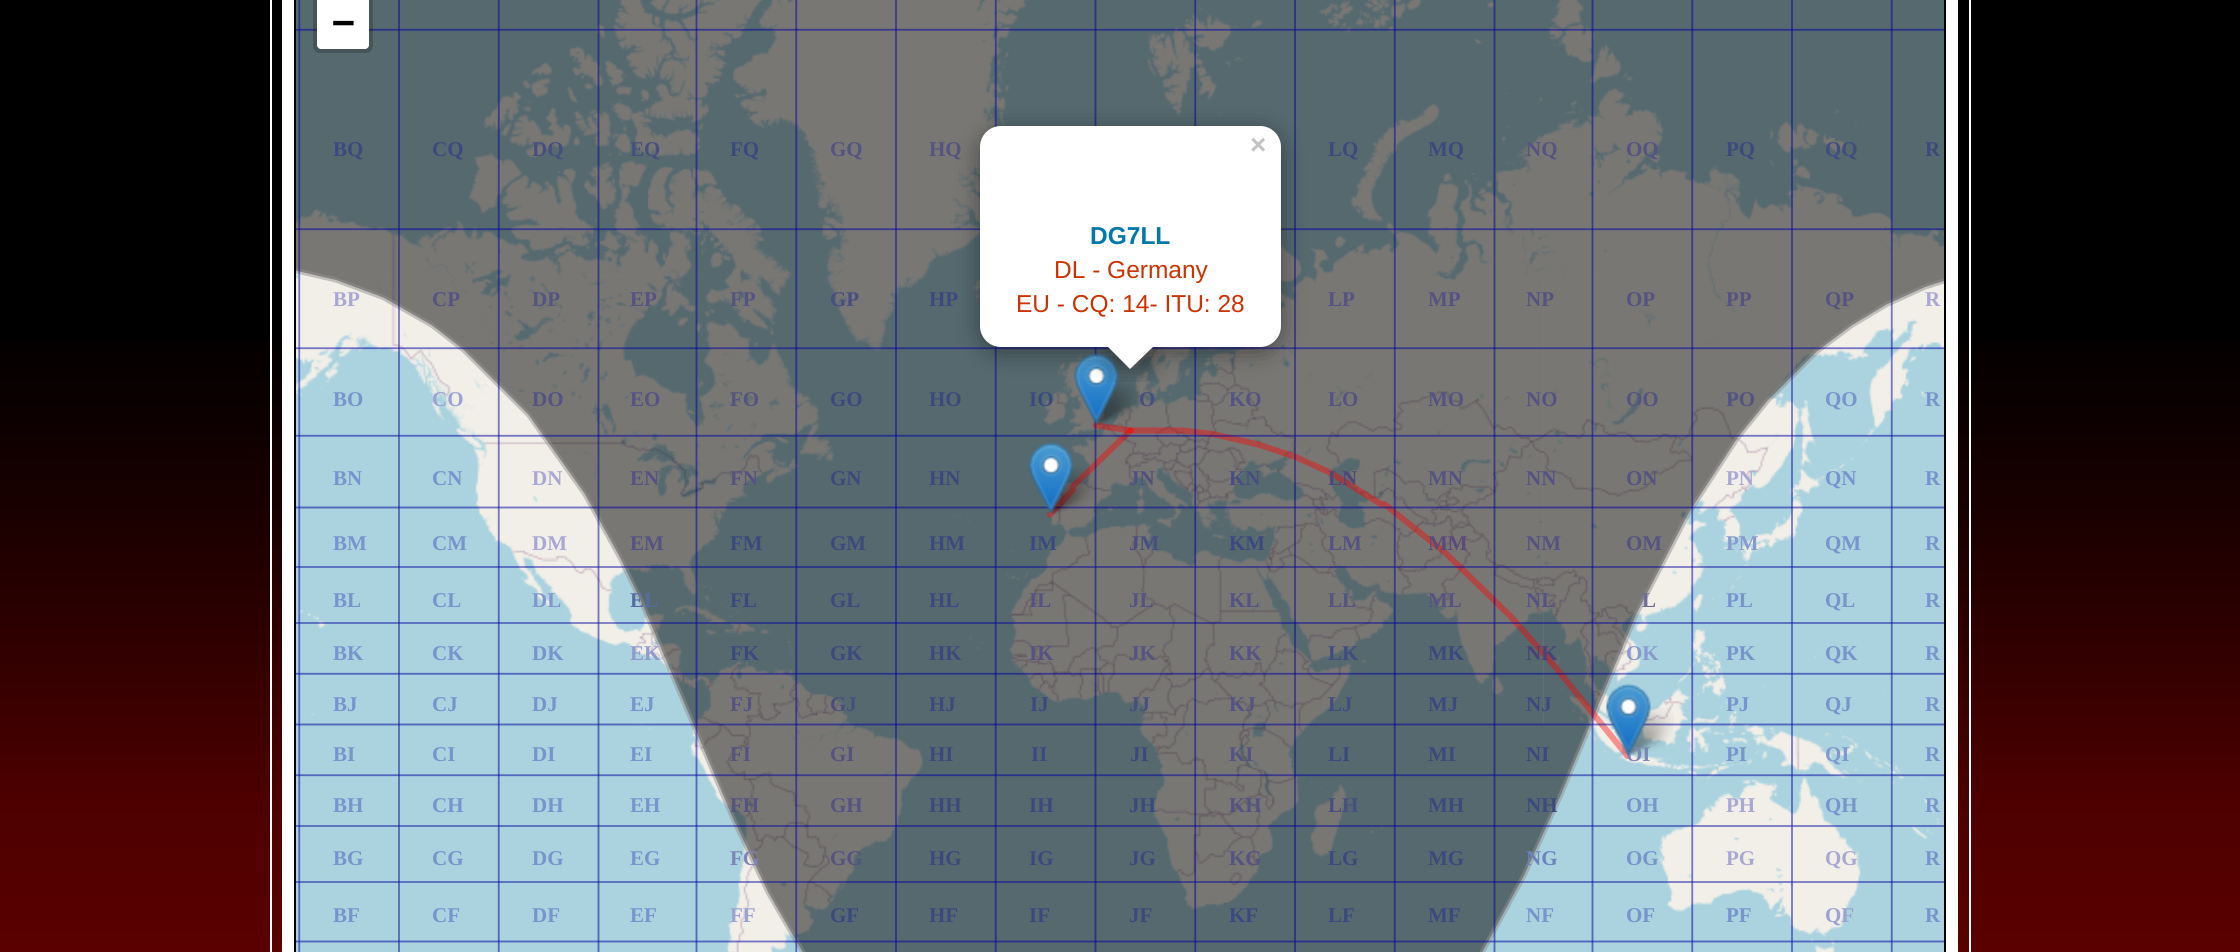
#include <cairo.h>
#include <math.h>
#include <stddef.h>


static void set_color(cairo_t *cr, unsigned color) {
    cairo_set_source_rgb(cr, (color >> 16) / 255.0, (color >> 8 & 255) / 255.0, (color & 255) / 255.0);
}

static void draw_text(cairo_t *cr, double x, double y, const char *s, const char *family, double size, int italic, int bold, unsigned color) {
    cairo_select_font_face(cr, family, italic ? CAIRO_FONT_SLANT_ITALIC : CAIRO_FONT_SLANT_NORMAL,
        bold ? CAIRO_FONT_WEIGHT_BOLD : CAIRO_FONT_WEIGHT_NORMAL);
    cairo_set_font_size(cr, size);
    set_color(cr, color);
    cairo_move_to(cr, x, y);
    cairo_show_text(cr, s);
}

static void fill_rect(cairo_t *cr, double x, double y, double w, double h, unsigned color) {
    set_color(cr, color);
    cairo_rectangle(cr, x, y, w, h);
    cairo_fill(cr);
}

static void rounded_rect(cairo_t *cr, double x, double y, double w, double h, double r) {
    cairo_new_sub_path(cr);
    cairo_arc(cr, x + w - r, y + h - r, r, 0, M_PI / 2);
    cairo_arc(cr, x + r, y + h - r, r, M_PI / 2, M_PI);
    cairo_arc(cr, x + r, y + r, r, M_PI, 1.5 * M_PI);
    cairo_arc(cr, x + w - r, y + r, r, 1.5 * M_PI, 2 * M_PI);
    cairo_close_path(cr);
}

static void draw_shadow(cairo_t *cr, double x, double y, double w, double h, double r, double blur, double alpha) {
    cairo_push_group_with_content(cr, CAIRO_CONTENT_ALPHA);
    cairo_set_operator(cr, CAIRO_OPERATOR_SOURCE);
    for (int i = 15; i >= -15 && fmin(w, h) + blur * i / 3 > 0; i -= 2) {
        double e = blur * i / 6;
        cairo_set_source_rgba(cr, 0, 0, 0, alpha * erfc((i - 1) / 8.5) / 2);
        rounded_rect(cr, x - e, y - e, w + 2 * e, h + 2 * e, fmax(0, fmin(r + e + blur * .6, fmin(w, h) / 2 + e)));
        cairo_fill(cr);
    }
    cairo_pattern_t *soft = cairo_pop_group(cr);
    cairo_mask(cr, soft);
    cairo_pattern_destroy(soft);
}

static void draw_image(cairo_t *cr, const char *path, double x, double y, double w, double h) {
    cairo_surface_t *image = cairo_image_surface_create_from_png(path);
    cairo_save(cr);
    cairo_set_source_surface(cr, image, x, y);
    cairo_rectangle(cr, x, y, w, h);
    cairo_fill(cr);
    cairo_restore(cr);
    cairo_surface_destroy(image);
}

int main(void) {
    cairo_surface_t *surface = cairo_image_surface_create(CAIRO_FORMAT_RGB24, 2240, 952);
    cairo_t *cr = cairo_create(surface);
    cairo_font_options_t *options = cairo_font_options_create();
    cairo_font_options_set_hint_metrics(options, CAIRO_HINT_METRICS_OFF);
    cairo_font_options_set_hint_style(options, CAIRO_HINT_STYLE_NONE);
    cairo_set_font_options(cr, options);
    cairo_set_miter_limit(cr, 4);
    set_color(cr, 0x000000);
    cairo_paint(cr);
    draw_image(cr, "assets/img1.png", 0, 341, 2240, 611);
    cairo_rectangle(cr, 271, -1, 1699, 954);
    set_color(cr, 0xFFFFFF);
    cairo_stroke(cr);
    fill_rect(cr, 282, 0, 1676, 952, 0xFFFFFF);
    cairo_rectangle(cr, 295, -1, 1650, 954);
    set_color(cr, 0x000000);
    cairo_stroke(cr);
    draw_image(cr, "assets/img2.png", 296, 0, 352, 276);
    draw_image(cr, "assets/img3.png", 648, 0, 448, 276);
    draw_image(cr, "assets/img7.png", 647, 347, 449, 377);
    draw_image(cr, "assets/img8.png", 1095, 276, 449, 448);
    draw_image(cr, "assets/img4.png", 1096, 0, 448, 277);
    draw_image(cr, "assets/img5.png", 1544, 0, 400, 276);
    draw_image(cr, "assets/img6.png", 296, 723, 352, 1);
    draw_image(cr, "assets/img9.png", 1544, 276, 400, 448);
    fill_rect(cr, 296, 724, 352, 228, 0xAAD3DF);
    draw_image(cr, "assets/img10.png", 648, 724, 448, 228);
    draw_image(cr, "assets/img11.png", 1096, 724, 448, 228);
    draw_image(cr, "assets/img12.png", 1544, 724, 400, 228);
    draw_image(cr, "assets/img17.png", 647, 276, 449, 449);
    draw_image(cr, "assets/img16.png", 296, 276, 352, 448);
    draw_image(cr, "assets/img13.png", 296, 275, 291, 2);
    draw_image(cr, "assets/img14.png", 663, 275, 317, 2);
    draw_image(cr, "assets/img18.png", 1095, 276, 449, 449);
    draw_image(cr, "assets/img15.png", 1281, 275, 245, 2);
    draw_image(cr, "assets/img19.png", 1544, 723, 400, 2);
    draw_image(cr, "assets/img20.png", 695, 724, 159, 1);
    draw_image(cr, "assets/img21.png", 1127, 724, 184, 1);
    draw_image(cr, "assets/img22.png", 1589, 724, 161, 1);
    draw_image(cr, "assets/img23.png", 296, 0, 1648, 952);
    rounded_rect(cr, 315, -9, 56, 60, 5);
    cairo_set_source_rgba(cr, 0, 0, 0, 0.2);
    cairo_set_line_width(cr, 4);
    cairo_stroke(cr);
    set_color(cr, 0xFFFFFF);
    cairo_new_path(cr);
    cairo_move_to(cr, 317, -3);
    cairo_line_to(cr, 369, -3);
    cairo_line_to(cr, 369, 45);
    cairo_curve_to(cr, 369, 47, 367, 49, 365, 49);
    cairo_line_to(cr, 321, 49);
    cairo_curve_to(cr, 319, 49, 317, 47, 317, 45);
    cairo_close_path(cr);
    cairo_fill(cr);
    draw_text(cr, 332, 35, "−", "DejaVu Sans Mono", 38, 0, 1, 0x000000);
    draw_image(cr, "assets/img27.png", 1090, 377, 50, 48);
    draw_image(cr, "assets/img24.png", 1074, 353, 45, 72);
    set_color(cr, 0x000000);
    draw_shadow(cr, 980, 131, 301, 221, 21, 12, 0.4);
    set_color(cr, 0xFFFFFF);
    rounded_rect(cr, 980, 126, 301, 221, 21);
    cairo_fill(cr);
    draw_text(cr, 1250, 154, "×", "Liberation Sans", 28, 0, 1, 0xC3C3C3);
    draw_text(cr, 1090, 244, "DG7LL", "Liberation Sans", 24.5, 0, 1, 0x0078A8);
    draw_text(cr, 1054, 278, "DL - Germany", "Liberation Sans", 24.5, 0, 0, 0xCC3300);
    draw_text(cr, 1016, 312, "EU - CQ: 14- ITU: 28", "Liberation Sans", 24.5, 0, 0, 0xCC3300);
    cairo_save(cr);
    cairo_rectangle(cr, 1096, 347, 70, 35);
    cairo_clip(cr);
    set_color(cr, 0x000000);
    draw_shadow(cr, 1115, 334, 33, 34, 0, 12.5, 0.4);
    cairo_restore(cr);
    cairo_save(cr);
    cairo_rectangle(cr, 1096, 347, 70, 35);
    cairo_clip(cr);
    set_color(cr, 0xFFFFFF);
    cairo_new_path(cr);
    cairo_move_to(cr, 1130, 322);
    cairo_line_to(cr, 1154, 346);
    cairo_line_to(cr, 1130, 369);
    cairo_line_to(cr, 1107, 346);
    cairo_close_path(cr);
    cairo_fill(cr);
    cairo_restore(cr);
    draw_text(cr, 333, 156, "BQ", "Liberation Serif", 21, 0, 1, 0x3B4A7E);
    draw_text(cr, 432, 156, "CQ", "Liberation Serif", 21, 0, 1, 0x3B4A7E);
    draw_text(cr, 532, 156, "DQ", "Liberation Serif", 21, 0, 1, 0x484E7F);
    draw_text(cr, 630, 156, "EQ", "Liberation Serif", 21, 0, 1, 0x484E7F);
    draw_text(cr, 730, 156, "FQ", "Liberation Serif", 21, 0, 1, 0x3B4A7E);
    draw_text(cr, 830, 156, "GQ", "Liberation Serif", 21, 0, 1, 0x545381);
    draw_text(cr, 929, 156, "HQ", "Liberation Serif", 21, 0, 1, 0x545381);
    draw_text(cr, 1328, 156, "LQ", "Liberation Serif", 21, 0, 1, 0x3B4A7E);
    draw_text(cr, 1428, 156, "MQ", "Liberation Serif", 21, 0, 1, 0x3B4A7E);
    draw_text(cr, 1526, 156, "NQ", "Liberation Serif", 21, 0, 1, 0x545381);
    draw_text(cr, 1626, 156, "OQ", "Liberation Serif", 21, 0, 1, 0x545381);
    draw_text(cr, 1726, 156, "PQ", "Liberation Serif", 21, 0, 1, 0x3B4A7E);
    draw_text(cr, 1825, 156, "QQ", "Liberation Serif", 21, 0, 1, 0x414C7F);
    draw_text(cr, 1925, 156, "R", "Liberation Serif", 21, 0, 1, 0x3B4A7E);
    draw_text(cr, 333, 306, "BP", "Liberation Serif", 21, 0, 1, 0xA9A7D3);
    draw_text(cr, 432, 306, "CP", "Liberation Serif", 21, 0, 1, 0x545381);
    draw_text(cr, 532, 306, "DP", "Liberation Serif", 21, 0, 1, 0x545381);
    draw_text(cr, 630, 306, "EP", "Liberation Serif", 21, 0, 1, 0x545381);
    draw_text(cr, 730, 306, "FP", "Liberation Serif", 21, 0, 1, 0x545381);
    draw_text(cr, 830, 306, "GP", "Liberation Serif", 21, 0, 1, 0x484E7F);
    draw_text(cr, 929, 306, "HP", "Liberation Serif", 21, 0, 1, 0x3B4A7E);
    draw_text(cr, 1328, 306, "LP", "Liberation Serif", 21, 0, 1, 0x545381);
    draw_text(cr, 1428, 306, "MP", "Liberation Serif", 21, 0, 1, 0x545381);
    draw_text(cr, 1526, 306, "NP", "Liberation Serif", 21, 0, 1, 0x545381);
    draw_text(cr, 1626, 306, "OP", "Liberation Serif", 21, 0, 1, 0x545381);
    draw_text(cr, 1726, 306, "PP", "Liberation Serif", 21, 0, 1, 0x545381);
    draw_text(cr, 1825, 306, "QP", "Liberation Serif", 21, 0, 1, 0x545381);
    draw_text(cr, 1925, 306, "R", "Liberation Serif", 21, 0, 1, 0xA9A7D3);
    draw_text(cr, 333, 406, "BO", "Liberation Serif", 21, 0, 1, 0x7794CC);
    draw_text(cr, 432, 406, "CO", "Liberation Serif", 21, 0, 1, 0x9CA2D1);
    draw_text(cr, 532, 406, "DO", "Liberation Serif", 21, 0, 1, 0x545381);
    draw_text(cr, 630, 406, "EO", "Liberation Serif", 21, 0, 1, 0x545381);
    draw_text(cr, 730, 406, "FO", "Liberation Serif", 21, 0, 1, 0x545381);
    draw_text(cr, 830, 406, "GO", "Liberation Serif", 21, 0, 1, 0x3B4A7E);
    draw_text(cr, 929, 406, "HO", "Liberation Serif", 21, 0, 1, 0x3B4A7E);
    draw_text(cr, 1029, 406, "IO", "Liberation Serif", 21, 0, 1, 0x3B4A7E);
    draw_text(cr, 1139, 406, "O", "Liberation Serif", 21, 0, 1, 0x484E7F);
    draw_text(cr, 1229, 406, "KO", "Liberation Serif", 21, 0, 1, 0x545381);
    draw_text(cr, 1328, 406, "LO", "Liberation Serif", 21, 0, 1, 0x545381);
    draw_text(cr, 1428, 406, "MO", "Liberation Serif", 21, 0, 1, 0x545381);
    draw_text(cr, 1526, 406, "NO", "Liberation Serif", 21, 0, 1, 0x545381);
    draw_text(cr, 1626, 406, "OO", "Liberation Serif", 21, 0, 1, 0x545381);
    draw_text(cr, 1726, 406, "PO", "Liberation Serif", 21, 0, 1, 0x545381);
    draw_text(cr, 1825, 406, "QO", "Liberation Serif", 21, 0, 1, 0x7794CC);
    draw_text(cr, 1925, 406, "R", "Liberation Serif", 21, 0, 1, 0x7794CC);
    draw_text(cr, 333, 485, "BN", "Liberation Serif", 21, 0, 1, 0x7794CC);
    draw_text(cr, 432, 485, "CN", "Liberation Serif", 21, 0, 1, 0x7794CC);
    draw_text(cr, 532, 485, "DN", "Liberation Serif", 21, 0, 1, 0xA9A7D3);
    draw_text(cr, 630, 485, "EN", "Liberation Serif", 21, 0, 1, 0x545381);
    draw_text(cr, 730, 485, "FN", "Liberation Serif", 21, 0, 1, 0x545381);
    draw_text(cr, 830, 485, "GN", "Liberation Serif", 21, 0, 1, 0x3B4A7E);
    draw_text(cr, 929, 485, "HN", "Liberation Serif", 21, 0, 1, 0x3B4A7E);
    draw_image(cr, "assets/img28.png", 1045, 466, 51, 49);
    draw_image(cr, "assets/img25.png", 1029, 442, 44, 73);
    draw_text(cr, 1129, 485, "JN", "Liberation Serif", 21, 0, 1, 0x4E5180);
    draw_text(cr, 1229, 485, "KN", "Liberation Serif", 21, 0, 1, 0x484E7F);
    draw_text(cr, 1328, 485, "LN", "Liberation Serif", 21, 0, 1, 0x524577);
    draw_text(cr, 1428, 485, "MN", "Liberation Serif", 21, 0, 1, 0x545381);
    draw_text(cr, 1526, 485, "NN", "Liberation Serif", 21, 0, 1, 0x545381);
    draw_text(cr, 1626, 485, "ON", "Liberation Serif", 21, 0, 1, 0x545381);
    draw_text(cr, 1726, 485, "PN", "Liberation Serif", 21, 0, 1, 0xA9A7D3);
    draw_text(cr, 1825, 485, "QN", "Liberation Serif", 21, 0, 1, 0x7794CC);
    draw_text(cr, 1925, 485, "R", "Liberation Serif", 21, 0, 1, 0x7794CC);
    draw_text(cr, 333, 550, "BM", "Liberation Serif", 21, 0, 1, 0x7794CC);
    draw_text(cr, 432, 550, "CM", "Liberation Serif", 21, 0, 1, 0x7794CC);
    draw_text(cr, 532, 550, "DM", "Liberation Serif", 21, 0, 1, 0xA9A7D3);
    draw_text(cr, 630, 550, "EM", "Liberation Serif", 21, 0, 1, 0x545381);
    draw_text(cr, 730, 550, "FM", "Liberation Serif", 21, 0, 1, 0x3B4A7E);
    draw_text(cr, 830, 550, "GM", "Liberation Serif", 21, 0, 1, 0x3B4A7E);
    draw_text(cr, 929, 550, "HM", "Liberation Serif", 21, 0, 1, 0x3B4A7E);
    draw_text(cr, 1029, 550, "IM", "Liberation Serif", 21, 0, 1, 0x3B4A7E);
    draw_text(cr, 1129, 550, "JM", "Liberation Serif", 21, 0, 1, 0x484E7F);
    draw_text(cr, 1229, 550, "KM", "Liberation Serif", 21, 0, 1, 0x3B4A7E);
    draw_text(cr, 1328, 550, "LM", "Liberation Serif", 21, 0, 1, 0x545381);
    draw_text(cr, 1428, 550, "MM", "Liberation Serif", 21, 0, 1, 0x5B4A79);
    draw_text(cr, 1526, 550, "NM", "Liberation Serif", 21, 0, 1, 0x545381);
    draw_text(cr, 1626, 550, "OM", "Liberation Serif", 21, 0, 1, 0x545381);
    draw_text(cr, 1726, 550, "PM", "Liberation Serif", 21, 0, 1, 0x899BCE);
    draw_text(cr, 1825, 550, "QM", "Liberation Serif", 21, 0, 1, 0x7794CC);
    draw_text(cr, 1925, 550, "R", "Liberation Serif", 21, 0, 1, 0x7794CC);
    draw_text(cr, 333, 607, "BL", "Liberation Serif", 21, 0, 1, 0x7794CC);
    draw_text(cr, 432, 607, "CL", "Liberation Serif", 21, 0, 1, 0x7794CC);
    draw_text(cr, 532, 607, "DL", "Liberation Serif", 21, 0, 1, 0x8197CD);
    draw_text(cr, 630, 607, "EL", "Liberation Serif", 21, 0, 1, 0x586BA0);
    draw_text(cr, 730, 607, "FL", "Liberation Serif", 21, 0, 1, 0x3B4A7E);
    draw_text(cr, 830, 607, "GL", "Liberation Serif", 21, 0, 1, 0x3B4A7E);
    draw_text(cr, 929, 607, "HL", "Liberation Serif", 21, 0, 1, 0x3B4A7E);
    draw_text(cr, 1029, 607, "IL", "Liberation Serif", 21, 0, 1, 0x545381);
    draw_text(cr, 1129, 607, "JL", "Liberation Serif", 21, 0, 1, 0x545381);
    draw_text(cr, 1229, 607, "KL", "Liberation Serif", 21, 0, 1, 0x545381);
    draw_text(cr, 1328, 607, "LL", "Liberation Serif", 21, 0, 1, 0x545381);
    draw_text(cr, 1428, 607, "ML", "Liberation Serif", 21, 0, 1, 0x545381);
    draw_text(cr, 1526, 607, "NL", "Liberation Serif", 21, 0, 1, 0x545381);
    draw_text(cr, 1642, 607, "L", "Liberation Serif", 21, 0, 1, 0x6D6C9A);
    draw_text(cr, 1726, 607, "PL", "Liberation Serif", 21, 0, 1, 0x7794CC);
    draw_text(cr, 1825, 607, "QL", "Liberation Serif", 21, 0, 1, 0x7794CC);
    draw_text(cr, 1925, 607, "R", "Liberation Serif", 21, 0, 1, 0x7794CC);
    draw_text(cr, 333, 660, "BK", "Liberation Serif", 21, 0, 1, 0x7794CC);
    draw_text(cr, 432, 660, "CK", "Liberation Serif", 21, 0, 1, 0x7794CC);
    draw_text(cr, 532, 660, "DK", "Liberation Serif", 21, 0, 1, 0x7794CC);
    draw_text(cr, 630, 660, "EK", "Liberation Serif", 21, 0, 1, 0x8F9ACD);
    draw_text(cr, 730, 660, "FK", "Liberation Serif", 21, 0, 1, 0x3B4A7E);
    draw_text(cr, 830, 660, "GK", "Liberation Serif", 21, 0, 1, 0x3B4A7E);
    draw_text(cr, 929, 660, "HK", "Liberation Serif", 21, 0, 1, 0x3B4A7E);
    draw_text(cr, 1029, 660, "IK", "Liberation Serif", 21, 0, 1, 0x545381);
    draw_text(cr, 1129, 660, "JK", "Liberation Serif", 21, 0, 1, 0x545381);
    draw_text(cr, 1229, 660, "KK", "Liberation Serif", 21, 0, 1, 0x545381);
    draw_text(cr, 1328, 660, "LK", "Liberation Serif", 21, 0, 1, 0x414C7F);
    draw_text(cr, 1428, 660, "MK", "Liberation Serif", 21, 0, 1, 0x3B4A7E);
    draw_text(cr, 1526, 660, "NK", "Liberation Serif", 21, 0, 1, 0x484276);
    draw_text(cr, 1626, 660, "OK", "Liberation Serif", 21, 0, 1, 0x899BCE);
    draw_text(cr, 1726, 660, "PK", "Liberation Serif", 21, 0, 1, 0x7794CC);
    draw_text(cr, 1825, 660, "QK", "Liberation Serif", 21, 0, 1, 0x7794CC);
    draw_text(cr, 1925, 660, "R", "Liberation Serif", 21, 0, 1, 0x7794CC);
    draw_text(cr, 333, 711, "BJ", "Liberation Serif", 21, 0, 1, 0x7794CC);
    draw_text(cr, 432, 711, "CJ", "Liberation Serif", 21, 0, 1, 0x7794CC);
    draw_text(cr, 532, 711, "DJ", "Liberation Serif", 21, 0, 1, 0x7794CC);
    draw_text(cr, 630, 711, "EJ", "Liberation Serif", 21, 0, 1, 0x7794CC);
    draw_text(cr, 730, 711, "FJ", "Liberation Serif", 21, 0, 1, 0x545381);
    draw_text(cr, 830, 711, "GJ", "Liberation Serif", 21, 0, 1, 0x484E7F);
    draw_text(cr, 929, 711, "HJ", "Liberation Serif", 21, 0, 1, 0x3B4A7E);
    draw_text(cr, 1030, 711, "IJ", "Liberation Serif", 21, 0, 1, 0x3B4A7E);
    draw_text(cr, 1129, 711, "JJ", "Liberation Serif", 21, 0, 1, 0x484E7F);
    draw_text(cr, 1229, 711, "KJ", "Liberation Serif", 21, 0, 1, 0x545381);
    draw_text(cr, 1328, 711, "LJ", "Liberation Serif", 21, 0, 1, 0x414C7F);
    draw_text(cr, 1428, 711, "MJ", "Liberation Serif", 21, 0, 1, 0x3B4A7E);
    draw_text(cr, 1526, 711, "NJ", "Liberation Serif", 21, 0, 1, 0x3B4A7E);
    draw_image(cr, "assets/img29.png", 1622, 706, 52, 50);
    draw_text(cr, 1626, 761, "OI", "Liberation Serif", 21, 0, 1, 0x7E85B8);
    draw_image(cr, "assets/img26.png", 1606, 683, 45, 73);
    draw_text(cr, 1726, 711, "PJ", "Liberation Serif", 21, 0, 1, 0x7794CC);
    draw_text(cr, 1825, 711, "QJ", "Liberation Serif", 21, 0, 1, 0x7794CC);
    draw_text(cr, 1925, 711, "R", "Liberation Serif", 21, 0, 1, 0x7794CC);
    draw_text(cr, 333, 761, "BI", "Liberation Serif", 21, 0, 1, 0x7794CC);
    draw_text(cr, 432, 761, "CI", "Liberation Serif", 21, 0, 1, 0x7794CC);
    draw_text(cr, 532, 761, "DI", "Liberation Serif", 21, 0, 1, 0x7794CC);
    draw_text(cr, 630, 761, "EI", "Liberation Serif", 21, 0, 1, 0x7794CC);
    draw_text(cr, 730, 761, "FI", "Liberation Serif", 21, 0, 1, 0x545381);
    draw_text(cr, 830, 761, "GI", "Liberation Serif", 21, 0, 1, 0x545381);
    draw_text(cr, 929, 761, "HI", "Liberation Serif", 21, 0, 1, 0x3B4A7E);
    draw_text(cr, 1031, 761, "II", "Liberation Serif", 21, 0, 1, 0x3B4A7E);
    draw_text(cr, 1130, 761, "JI", "Liberation Serif", 21, 0, 1, 0x3B4A7E);
    draw_text(cr, 1229, 761, "KI", "Liberation Serif", 21, 0, 1, 0x545381);
    draw_text(cr, 1328, 761, "LI", "Liberation Serif", 21, 0, 1, 0x3B4A7E);
    draw_text(cr, 1428, 761, "MI", "Liberation Serif", 21, 0, 1, 0x3B4A7E);
    draw_text(cr, 1526, 761, "NI", "Liberation Serif", 21, 0, 1, 0x3B4A7E);
    draw_text(cr, 1726, 761, "PI", "Liberation Serif", 21, 0, 1, 0x7794CC);
    draw_text(cr, 1825, 761, "QI", "Liberation Serif", 21, 0, 1, 0x8197CD);
    draw_text(cr, 1925, 761, "R", "Liberation Serif", 21, 0, 1, 0x7794CC);
    draw_text(cr, 333, 812, "BH", "Liberation Serif", 21, 0, 1, 0x7794CC);
    draw_text(cr, 432, 812, "CH", "Liberation Serif", 21, 0, 1, 0x7794CC);
    draw_text(cr, 532, 812, "DH", "Liberation Serif", 21, 0, 1, 0x7794CC);
    draw_text(cr, 630, 812, "EH", "Liberation Serif", 21, 0, 1, 0x7794CC);
    draw_text(cr, 730, 812, "FH", "Liberation Serif", 21, 0, 1, 0x545381);
    draw_text(cr, 830, 812, "GH", "Liberation Serif", 21, 0, 1, 0x545381);
    draw_text(cr, 929, 812, "HH", "Liberation Serif", 21, 0, 1, 0x3B4A7E);
    draw_text(cr, 1029, 812, "IH", "Liberation Serif", 21, 0, 1, 0x3B4A7E);
    draw_text(cr, 1129, 812, "JH", "Liberation Serif", 21, 0, 1, 0x3B4A7E);
    draw_text(cr, 1229, 812, "KH", "Liberation Serif", 21, 0, 1, 0x545381);
    draw_text(cr, 1328, 812, "LH", "Liberation Serif", 21, 0, 1, 0x484E7F);
    draw_text(cr, 1428, 812, "MH", "Liberation Serif", 21, 0, 1, 0x3B4A7E);
    draw_text(cr, 1526, 812, "NH", "Liberation Serif", 21, 0, 1, 0x3B4A7E);
    draw_text(cr, 1626, 812, "OH", "Liberation Serif", 21, 0, 1, 0x7794CC);
    draw_text(cr, 1726, 812, "PH", "Liberation Serif", 21, 0, 1, 0xA9A7D3);
    draw_text(cr, 1825, 812, "QH", "Liberation Serif", 21, 0, 1, 0x7794CC);
    draw_text(cr, 1925, 812, "R", "Liberation Serif", 21, 0, 1, 0x7794CC);
    draw_text(cr, 333, 865, "BG", "Liberation Serif", 21, 0, 1, 0x7794CC);
    draw_text(cr, 432, 865, "CG", "Liberation Serif", 21, 0, 1, 0x7794CC);
    draw_text(cr, 532, 865, "DG", "Liberation Serif", 21, 0, 1, 0x7794CC);
    draw_text(cr, 630, 865, "EG", "Liberation Serif", 21, 0, 1, 0x7794CC);
    draw_text(cr, 730, 865, "FG", "Liberation Serif", 21, 0, 1, 0x7E85B8);
    draw_text(cr, 830, 865, "GG", "Liberation Serif", 21, 0, 1, 0x545381);
    draw_text(cr, 929, 865, "HG", "Liberation Serif", 21, 0, 1, 0x3B4A7E);
    draw_text(cr, 1029, 865, "IG", "Liberation Serif", 21, 0, 1, 0x3B4A7E);
    draw_text(cr, 1129, 865, "JG", "Liberation Serif", 21, 0, 1, 0x3B4A7E);
    draw_text(cr, 1229, 865, "KG", "Liberation Serif", 21, 0, 1, 0x545381);
    draw_text(cr, 1328, 865, "LG", "Liberation Serif", 21, 0, 1, 0x3B4A7E);
    draw_text(cr, 1428, 865, "MG", "Liberation Serif", 21, 0, 1, 0x3B4A7E);
    draw_text(cr, 1526, 865, "NG", "Liberation Serif", 21, 0, 1, 0x6C84BB);
    draw_text(cr, 1626, 865, "OG", "Liberation Serif", 21, 0, 1, 0x7794CC);
    draw_text(cr, 1726, 865, "PG", "Liberation Serif", 21, 0, 1, 0xA9A7D3);
    draw_text(cr, 1825, 865, "QG", "Liberation Serif", 21, 0, 1, 0xA9A7D3);
    draw_text(cr, 1925, 865, "R", "Liberation Serif", 21, 0, 1, 0x7794CC);
    draw_text(cr, 333, 922, "BF", "Liberation Serif", 21, 0, 1, 0x7794CC);
    draw_text(cr, 432, 922, "CF", "Liberation Serif", 21, 0, 1, 0x7794CC);
    draw_text(cr, 532, 922, "DF", "Liberation Serif", 21, 0, 1, 0x7794CC);
    draw_text(cr, 630, 922, "EF", "Liberation Serif", 21, 0, 1, 0x7794CC);
    draw_text(cr, 730, 922, "FF", "Liberation Serif", 21, 0, 1, 0x9CA2D1);
    draw_text(cr, 830, 922, "GF", "Liberation Serif", 21, 0, 1, 0x3B4A7E);
    draw_text(cr, 929, 922, "HF", "Liberation Serif", 21, 0, 1, 0x3B4A7E);
    draw_text(cr, 1029, 922, "IF", "Liberation Serif", 21, 0, 1, 0x3B4A7E);
    draw_text(cr, 1129, 922, "JF", "Liberation Serif", 21, 0, 1, 0x3B4A7E);
    draw_text(cr, 1229, 922, "KF", "Liberation Serif", 21, 0, 1, 0x3B4A7E);
    draw_text(cr, 1328, 922, "LF", "Liberation Serif", 21, 0, 1, 0x3B4A7E);
    draw_text(cr, 1428, 922, "MF", "Liberation Serif", 21, 0, 1, 0x3B4A7E);
    draw_text(cr, 1526, 922, "NF", "Liberation Serif", 21, 0, 1, 0x7794CC);
    draw_text(cr, 1626, 922, "OF", "Liberation Serif", 21, 0, 1, 0x7794CC);
    draw_text(cr, 1726, 922, "PF", "Liberation Serif", 21, 0, 1, 0x7794CC);
    draw_text(cr, 1825, 922, "QF", "Liberation Serif", 21, 0, 1, 0x9CA2D1);
    draw_text(cr, 1925, 922, "R", "Liberation Serif", 21, 0, 1, 0x7794CC);
    cairo_surface_write_to_png(surface, "output.png");
    cairo_font_options_destroy(options);
    cairo_destroy(cr);
    cairo_surface_destroy(surface);
    return 0;
}
